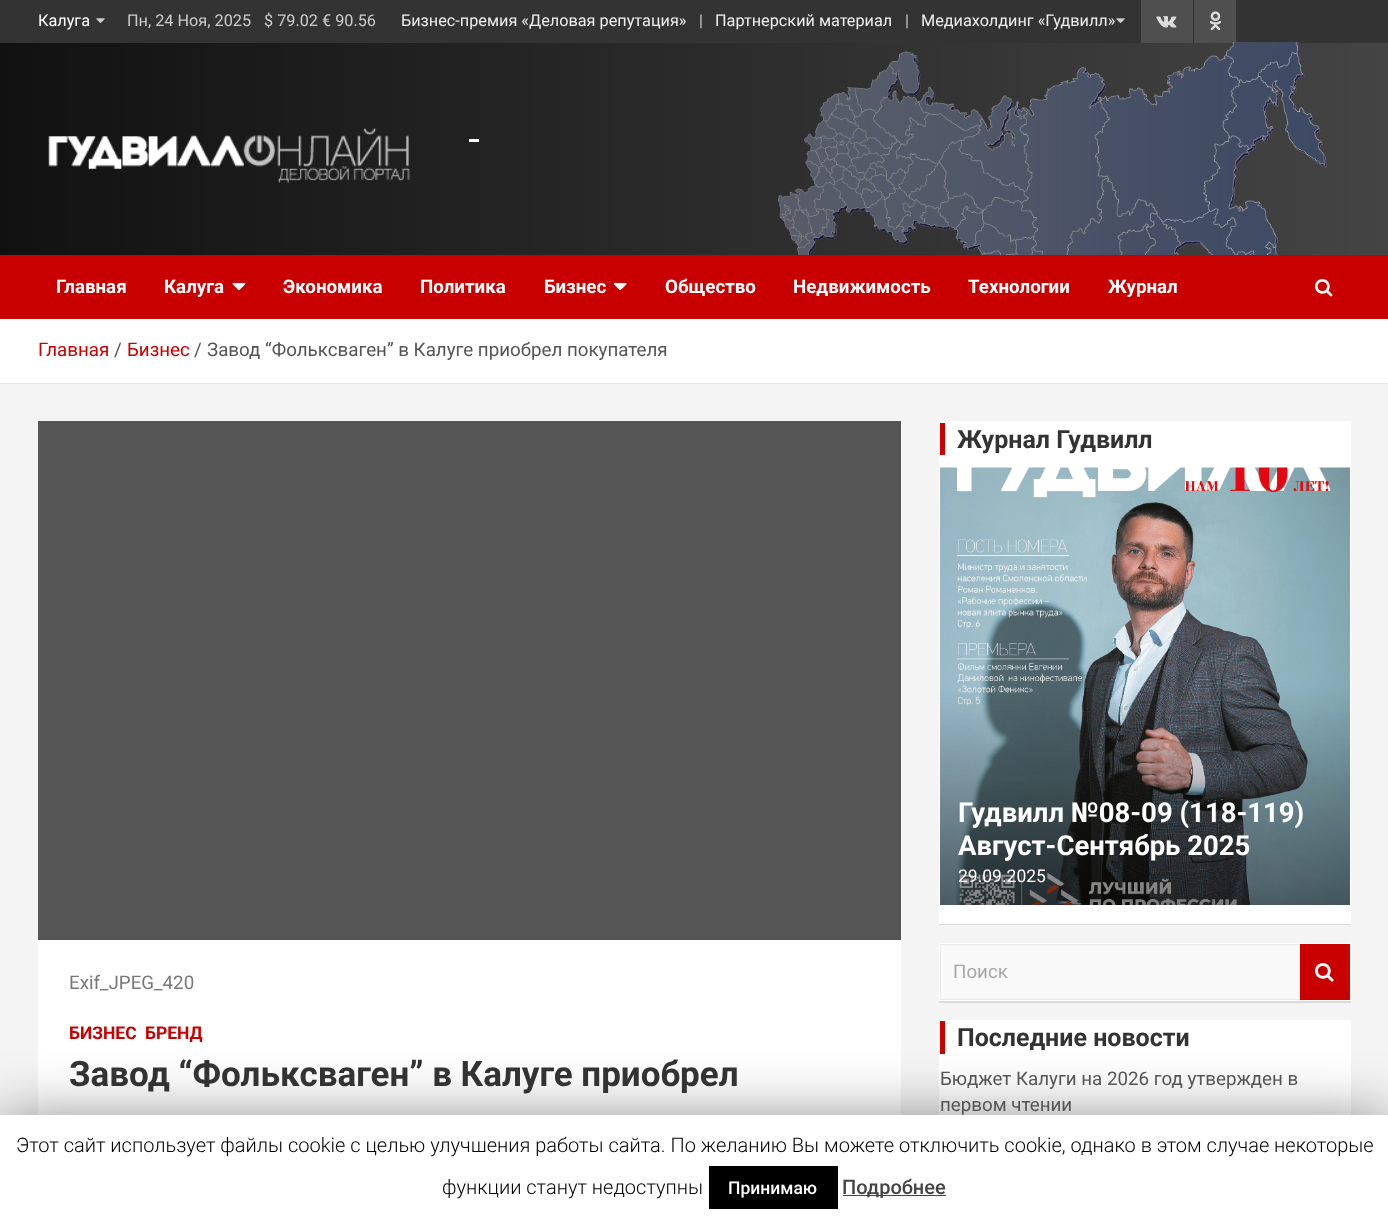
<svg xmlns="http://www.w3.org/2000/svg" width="1388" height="1224">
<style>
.a{font:16.25px Roboto;fill:#fff}
.b{font:16.25px Roboto;fill:#ccc}
.c{font:16.25px Roboto;fill:#eee}
.d{font:bold 18.75px Roboto;fill:#fff}
.e{font:18.75px Roboto;fill:#c80000}
.f{font:18.75px Roboto;fill:#555}
.g{font:18.75px Roboto;fill:#787878}
.h{font:bold 17.5px Roboto;fill:#c80000}
.i{font:bold 35px Roboto;fill:#333}
.j{font:bold 25px Roboto;fill:#333}
.k{font:bold 27.5px Roboto;fill:#fff}
.l{font:17.5px Roboto;fill:#fff}
.m{font:18.75px Roboto;fill:#a7a7a7}
.n{font:300 20px Roboto;fill:#000}
.o{font:500 17.5px Roboto;fill:#fff}
.p{font:500 20px Roboto;fill:#444}
</style>
<defs>
<linearGradient id="g1" gradientUnits="userSpaceOnUse" x1="0" y1="149" x2="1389" y2="149"><stop offset="0" stop-color="#000" stop-opacity="0.8"/><stop offset="1" stop-color="#000" stop-opacity="0.2"/></linearGradient>
</defs>
<rect width="100%" height="100%" fill="#f4f4f4"/>
<path fill="#333" d="M0 0h1388v43H0z"/>
<image href="1.png" x="96" y="18" width="9" height="5"/>
<image href="1.png" x="1116" y="18" width="9" height="5"/>
<path fill="#4f4f4f" d="M1141 0h52v43H1141z"/>
<image href="2.png" x="1156" y="16" width="21" height="12"/>
<path fill="#4f4f4f" d="M1194 0h42v43H1194z"/>
<image href="3.png" x="1209" y="11" width="12" height="20"/>
<path fill="#555" d="M0 43h1388v212H0z"/>
<image href="4.png" x="778" y="42" width="549" height="213"/>
<path fill="url(#g1)" d="M0 43h1388v212H0z"/>
<image href="5.png" x="48" y="128" width="363" height="55"/>
<path fill="#fff" d="M469 139h3v3H469z"/>
<path fill="#0000001a" filter="blur(0.5px)" d="M471 140h3v3H471z"/>
<path fill="#fff" d="M471 139h6v3H471z"/>
<path fill="#0000001a" filter="blur(0.5px)" d="M476 140h3v3H476z"/>
<path fill="#fff" d="M476 139h3v3H476z"/>
<path fill="#c80000" d="M0 255h1388v64H0z"/>
<image href="6.png" x="232" y="283" width="14" height="8"/>
<image href="7.png" x="613" y="283" width="14" height="8"/>
<image href="8.png" x="1315" y="279" width="18" height="18"/>
<path fill="#fff" d="M0 319h1388v64H0z"/>
<path fill="#e6e6e6" d="M0 383h1388v1H0z"/>
<path fill="#fff" d="M38 940h863v175H38z"/>
<path fill="#555" d="M38 421h863v519H38z"/>
<path fill="#0000001a" filter="blur(0.5px)" d="M939 423h412v502H939z"/>
<path fill="#fff" d="M939 421h412v503H939z"/>
<path fill="#c80000" d="M940 423h5v32H940z"/>
<image href="9.png" x="940" y="467" width="410" height="438"/>
<path fill="#0000001a" filter="blur(0.5px)" d="M939 944h412v59H939z"/>
<path fill="#fff" d="M939 943h412v58H939z"/>
<path fill="#f9f9f9" d="M941 945h359v54H941z"/>
<path fill="#e8e8e8" d="M940 944h360v1h-359z"/>
<path fill="#e8e8e8" d="M1300 1000h-360l1-1h359z"/>
<path fill="#00000017" d="M940 1000v-56l1 1v54z"/>
<path fill="#c80000" d="M1300 944h50v56H1300z"/>
<image href="10.png" x="1315" y="963" width="19" height="19"/>
<path fill="#fff" d="M939 1020h412v95H939z"/>
<path fill="#c80000" d="M940 1021h5v33H940z"/>
<path fill="#00000080" filter="blur(31px)" d="M0 1121h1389v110H0z"/>
<path fill="#fff" d="M0 1115h1388v109H0z"/>
<path fill="#000" d="M709 1166h129v43H709z"/>
<path fill="#444" d="M843 1195h103v1H843z"/>
<text class="a" x="38" y="26">Калуга</text>
<text class="b" x="127" y="26">Пн, 24 Ноя, 2025</text>
<text class="b" x="264" y="26">$ 79.02 € 90.56</text>
<text class="c" x="401" y="26">Бизнес-премия «Деловая репутация»</text>
<text class="b" x="699" y="26">|</text>
<text class="c" x="715" y="26">Партнерский материал</text>
<text class="b" x="905" y="26">|</text>
<text class="c" x="921" y="26">Медиахолдинг «Гудвилл»</text>
<text class="d" x="56" y="293">Главная</text>
<text class="d" x="164" y="293">Калуга</text>
<text class="d" x="283" y="293">Экономика</text>
<text class="d" x="420" y="293">Политика</text>
<text class="d" x="544" y="293">Бизнес</text>
<text class="d" x="665" y="293">Общество</text>
<text class="d" x="793" y="293">Недвижимость</text>
<text class="d" x="968" y="293">Технологии</text>
<text class="d" x="1108" y="293">Журнал</text>
<text class="e" x="38" y="356">Главная</text>
<text class="f" x="114" y="356">/</text>
<text class="e" x="127" y="356">Бизнес</text>
<text class="f" x="194" y="356">/</text>
<text class="f" x="207" y="356">Завод “Фольксваген” в Калуге приобрел покупателя</text>
<text class="g" x="69" y="989">Exif_JPEG_420</text>
<text class="h" x="69" y="1039">БИЗНЕС</text>
<text class="h" x="145" y="1039">БРЕНД</text>
<text class="i" x="69" y="1086">Завод “Фольксваген” в Калуге приобрел</text>
<text class="j" x="957" y="448">Журнал Гудвилл</text>
<text class="k" x="958" y="822">Гудвилл №08-09 (118-119)</text>
<text class="k" x="958" y="855">Август-Сентябрь 2025</text>
<text class="l" x="958" y="882">29.09.2025</text>
<text class="m" x="953" y="978">Поиск</text>
<text class="j" x="957" y="1046">Последние новости</text>
<text class="f" x="940" y="1085">Бюджет Калуги на 2026 год утвержден в</text>
<text class="f" x="940" y="1111">первом чтении</text>
<text class="n" x="16" y="1152">Этот сайт использует файлы cookie с целью улучшения работы сайта. По желанию Вы можете отключить cookie, однако в этом случае некоторые</text>
<text class="n" x="442" y="1194">функции станут недоступны</text>
<text class="o" x="728" y="1194">Принимаю</text>
<text class="p" x="842" y="1194">Подробнее</text>
</svg>
